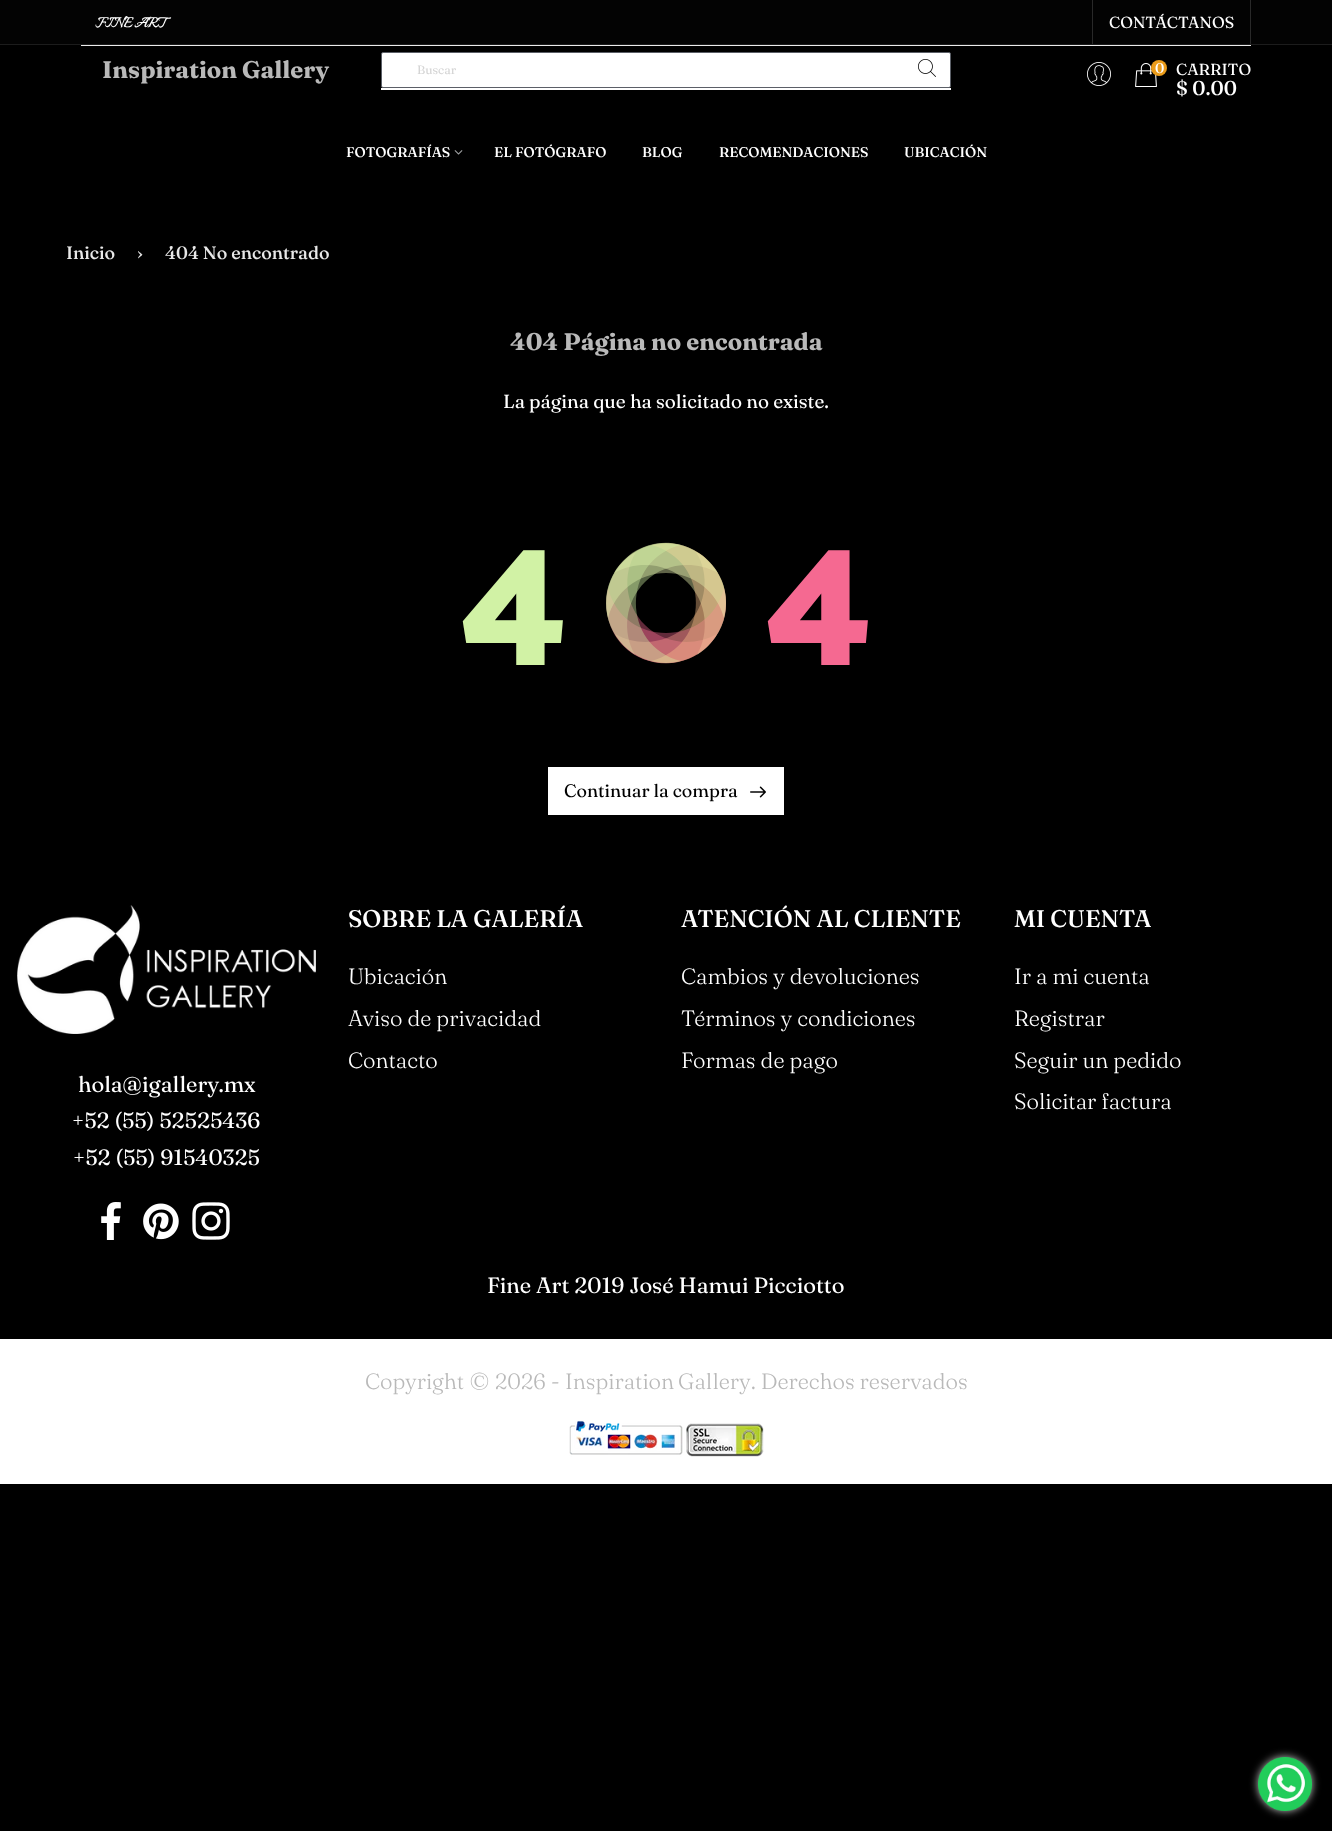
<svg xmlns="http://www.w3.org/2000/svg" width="1332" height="1831">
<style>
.a{font:bold 17px Italianno;fill:#fff}
.b{font:16px Fraunces;fill:#fff}
.c{font:bold 24px Fraunces;fill:#b9b9b9}
.d{font:12px Fraunces;fill:#d5d5d5}
.e{font:500 14px 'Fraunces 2';fill:#fff}
.f{font:500 20px Fraunces;fill:#fff}
.g{font:500 18px 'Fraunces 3';fill:#e8e8e8}
.h{font:19px 'Fraunces 2';fill:#fff}
.i{font:800 180px Catamaran;fill:#d1f2a5}
.j{font:800 180px Catamaran;fill:#f56991}
.k{font:18px 'Fraunces 3';fill:#000}
.l{font:500 24px 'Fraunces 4';fill:#fff}
.m{font:300 22px Fraunces;fill:#fff}
.n{font:22px 'Fraunces 4';fill:#fff}
.o{font:300 22px Fraunces;fill:#b9b9b9}
</style>
<rect width="100%" height="100%" fill="#000"/>
<path fill="#030303" d="M0 0h1332v44H0z"/>
<path fill="#1c1c1c" d="M0 44h1332v1H0z"/>
<path fill="#292929" d="M1250 0h1v44H1250z"/>
<path fill="#292929" d="M1092 0h1v44H1092z"/>
<path fill="#ebebeb" d="M81 45h1170v1H81z"/>
<rect fill="#fff" stroke="#5b5f67" x="381.5" y="52.5" width="569" height="35" rx="1.5"/>
<image href="1.png" x="918" y="59" width="18" height="18"/>
<path fill="#fff" d="M381 88h570v2H381z"/>
<image href="2.png" x="1087" y="62" width="24" height="24"/>
<image href="3.png" x="1135" y="63" width="22" height="24"/>
<circle fill="#eb9c1a" cx="1159" cy="68" r="8"/>
<image href="4.png" x="454" y="150" width="9" height="5"/>
<path fill="#622a3a" d="M717 634c-23 13-53 10-72-9c-20-20-23-51-9-73c-42 24-39 88 7 107c11 4 23 5 34 3c17-3 32-13 40-28z"/>
<path fill="#ffc48c66" d="M708 561c-3-4-7-7-12-9c14 22 11 53-9 73c-19 19-49 22-72 9c2 4 5 8 9 12c23 23 61 23 84 0c24-24 24-62 0-85z"/>
<path fill="#effab466" d="M687 582c20 20 23 50 10 73c14-9 25-24 28-40c2-12 1-24-3-34c-19-46-83-50-108-8c24-13 54-10 73 9z"/>
<path fill="#d1f2a566" d="M708 561c-23-24-61-24-84 0c-24 23-24 61 0 85c3 3 7 6 11 9c-13-23-10-53 10-73c19-19 49-22 73-9c-3-4-6-8-10-12z"/>
<path fill="#f5699166" d="M608 588c-3 13-2 26 3 38c4 11 12 20 21 27c47 31 106-13 92-65c-15 60-101 60-116 0z"/>
<path fill="#ffc48c66" d="M666 543c-5 0-10 1-15 2c60 15 60 101 0 116c5 1 10 2 15 2c33 0 60-27 60-60c0-33-27-60-60-60z"/>
<path fill="#effab466" d="M666 573c28 0 51 19 58 45c14-52-45-96-92-65c-9 7-17 16-21 27c-5 12-6 25-3 38c7-26 30-45 58-45z"/>
<path fill="#d1f2a566" d="M666 543c-33 0-60 27-60 60c0 33 27 60 60 60c5 0 10-1 15-2c-60-15-60-101 0-116c-5-1-10-2-15-2z"/>
<path fill="#fff" d="M548 767h236v48H548z"/>
<image href="5.png" x="750" y="786" width="16" height="12"/>
<image href="6.png" x="17" y="905" width="299" height="129"/>
<image href="7.png" x="101" y="1202" width="20" height="38"/>
<image href="8.png" x="143" y="1203" width="36" height="37"/>
<image href="9.png" x="192" y="1202" width="38" height="38"/>
<path fill="#fff" d="M0 1339h1332v145H0z"/>
<image href="10.png" x="569" y="1420" width="195" height="37"/>
<rect fill="#c2c2c2" filter="blur(4px)" x="1258" y="1757" width="54" height="54" rx="27"/>
<image href="11.png" x="1258" y="1757" width="54" height="54"/>
<text class="a" x="95" y="27">FINE ART</text>
<text class="b" x="1109" y="28">CONTÁCTANOS</text>
<text class="c" x="102" y="78">Inspiration Gallery</text>
<text class="d" x="417" y="74">Buscar</text>
<text class="e" x="1155" y="73">0</text>
<text class="b" x="1176" y="75">CARRITO</text>
<text class="f" x="1176" y="95">$ 0.00</text>
<text class="e" x="346" y="157">FOTOGRAFÍAS</text>
<text class="e" x="494" y="157">EL FOTÓGRAFO</text>
<text class="e" x="642" y="157">BLOG</text>
<text class="e" x="719" y="157">RECOMENDACIONES</text>
<text class="e" x="904" y="157">UBICACIÓN</text>
<text class="g" x="66" y="259">Inicio</text>
<text class="g" x="137" y="259">›</text>
<text class="g" x="165" y="259">404 No encontrado</text>
<text class="c" x="510" y="350">404 Página no encontrada</text>
<text class="h" x="503" y="408">La página que ha solicitado no existe.</text>
<text class="i" x="461" y="653">4</text>
<text class="j" x="766" y="653">4</text>
<text class="k" x="564" y="797">Continuar la compra</text>
<text class="l" x="348" y="927">SOBRE LA GALERÍA</text>
<text class="m" x="348" y="984">Ubicación</text>
<text class="m" x="348" y="1026">Aviso de privacidad</text>
<text class="m" x="348" y="1068">Contacto</text>
<text class="l" x="681" y="927">ATENCIÓN AL CLIENTE</text>
<text class="m" x="681" y="984">Cambios y devoluciones</text>
<text class="m" x="681" y="1026">Términos y condiciones</text>
<text class="m" x="681" y="1068">Formas de pago</text>
<text class="l" x="1014" y="927">MI CUENTA</text>
<text class="m" x="1014" y="984">Ir a mi cuenta</text>
<text class="m" x="1014" y="1026">Registrar</text>
<text class="m" x="1014" y="1068">Seguir un pedido</text>
<text class="m" x="1014" y="1109">Solicitar factura</text>
<text class="n" x="78" y="1092">hola@igallery.mx</text>
<text class="n" x="72" y="1128">+52 (55) 52525436</text>
<text class="n" x="73" y="1165">+52 (55) 91540325</text>
<text class="n" x="487" y="1293">Fine Art 2019 José Hamui Picciotto</text>
<text class="o" x="365" y="1389">Copyright © 2026 -</text>
<text class="o" x="565" y="1389" word-spacing="-1">Inspiration Gallery</text>
<text class="o" x="751" y="1389">. Derechos reservados</text>
</svg>
